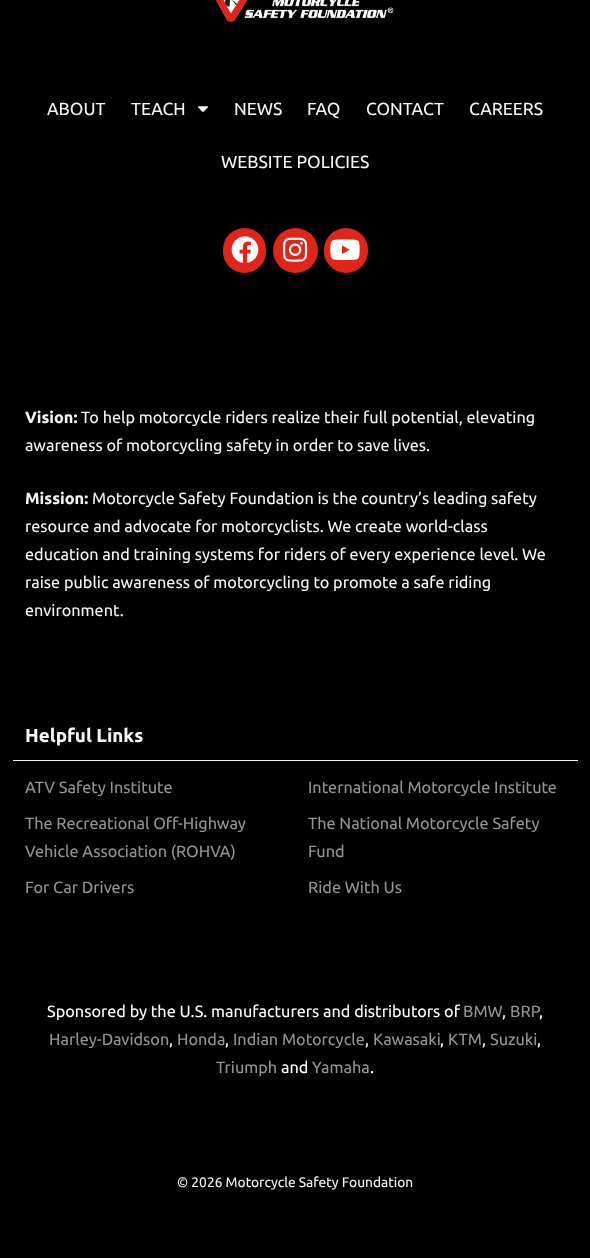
<svg xmlns="http://www.w3.org/2000/svg" width="590" height="1258">
<style>
.a{font:17.5px Ubuntu;fill:#f5f5f5}
.b{font:bold 16.25px Ubuntu;fill:#f5f5f5}
.c{font:16.25px Ubuntu;fill:#f5f5f5}
.d{font:bold 18.75px Ubuntu;fill:#f5f5f5}
.e{font:16.25px Ubuntu;fill:#939598}
.f{font:16.25px Ubuntu;fill:#fff}
.g{font:13.75px Ubuntu;fill:#f5f5f5}
</style>
<rect width="100%" height="100%" fill="#000"/>
<image href="1.png" x="215" y="0" width="179" height="22"/>
<image href="2.png" x="197" y="106" width="11" height="6"/>
<rect fill="#e1251b" x="223" y="228" width="43" height="45" rx="21.5"/>
<image href="3.png" x="231" y="236" width="28" height="27"/>
<circle fill="#e1251b" cx="295.5" cy="250.5" r="22.5"/>
<image href="4.png" x="283" y="237" width="25" height="25"/>
<rect fill="#e1251b" x="324" y="228" width="44" height="45" rx="22"/>
<image href="5.png" x="330" y="239" width="30" height="21"/>
<path fill="#f5f5f5" d="M13 760h565v1H13z"/>
<text class="a" x="47" y="115">ABOUT</text>
<text class="a" x="131" y="115">TEACH</text>
<text class="a" x="234" y="115">NEWS</text>
<text class="a" x="307" y="115">FAQ</text>
<text class="a" x="366" y="115">CONTACT</text>
<text class="a" x="469" y="115">CAREERS</text>
<text class="a" x="221" y="168">WEBSITE POLICIES</text>
<text class="b" x="25" y="423">Vision:</text>
<text class="c" x="81" y="423">To help motorcycle riders realize their full potential, elevating</text>
<text class="c" x="25" y="451">awareness of motorcycling safety in order to save lives.</text>
<text class="b" x="25" y="504">Mission:</text>
<text class="c" x="92" y="504">Motorcycle Safety Foundation is the country’s leading safety</text>
<text class="c" x="25" y="532">resource and advocate for motorcyclists. We create world-class</text>
<text class="c" x="25" y="560">education and training systems for riders of every experience level. We</text>
<text class="c" x="25" y="588">raise public awareness of motorcycling to promote a safe riding</text>
<text class="c" x="25" y="616">environment.</text>
<text class="d" x="25" y="742">Helpful Links</text>
<text class="e" x="25" y="793">ATV Safety Institute</text>
<text class="e" x="308" y="793">International Motorcycle Institute</text>
<text class="e" x="25" y="829">The Recreational Off-Highway</text>
<text class="e" x="25" y="857">Vehicle Association (ROHVA)</text>
<text class="e" x="308" y="829">The National Motorcycle Safety</text>
<text class="e" x="308" y="857">Fund</text>
<text class="e" x="25" y="893">For Car Drivers</text>
<text class="e" x="308" y="893">Ride With Us</text>
<text class="f" x="47" y="1017">Sponsored by the U.S. manufacturers and distributors of</text>
<text class="e" x="463" y="1017">BMW</text>
<text class="f" x="502" y="1017">,</text>
<text class="e" x="510" y="1017">BRP</text>
<text class="f" x="539" y="1017">,</text>
<text class="e" x="49" y="1045">Harley-Davidson</text>
<text class="e" x="177" y="1045">Honda</text>
<text class="e" x="233" y="1045">Indian Motorcycle</text>
<text class="e" x="373" y="1045">Kawasaki</text>
<text class="e" x="448" y="1045">KTM</text>
<text class="e" x="490" y="1045">Suzuki</text>
<text class="f" x="169" y="1045">,</text>
<text class="f" x="225" y="1045">,</text>
<text class="f" x="365" y="1045">,</text>
<text class="f" x="440" y="1045">,</text>
<text class="f" x="482" y="1045">,</text>
<text class="f" x="537" y="1045">,</text>
<text class="e" x="216" y="1073">Triumph</text>
<text class="f" x="281" y="1073">and</text>
<text class="e" x="312" y="1073">Yamaha</text>
<text class="f" x="370" y="1073">.</text>
<text class="g" x="177" y="1187">© 2026 Motorcycle Safety Foundation</text>
</svg>
